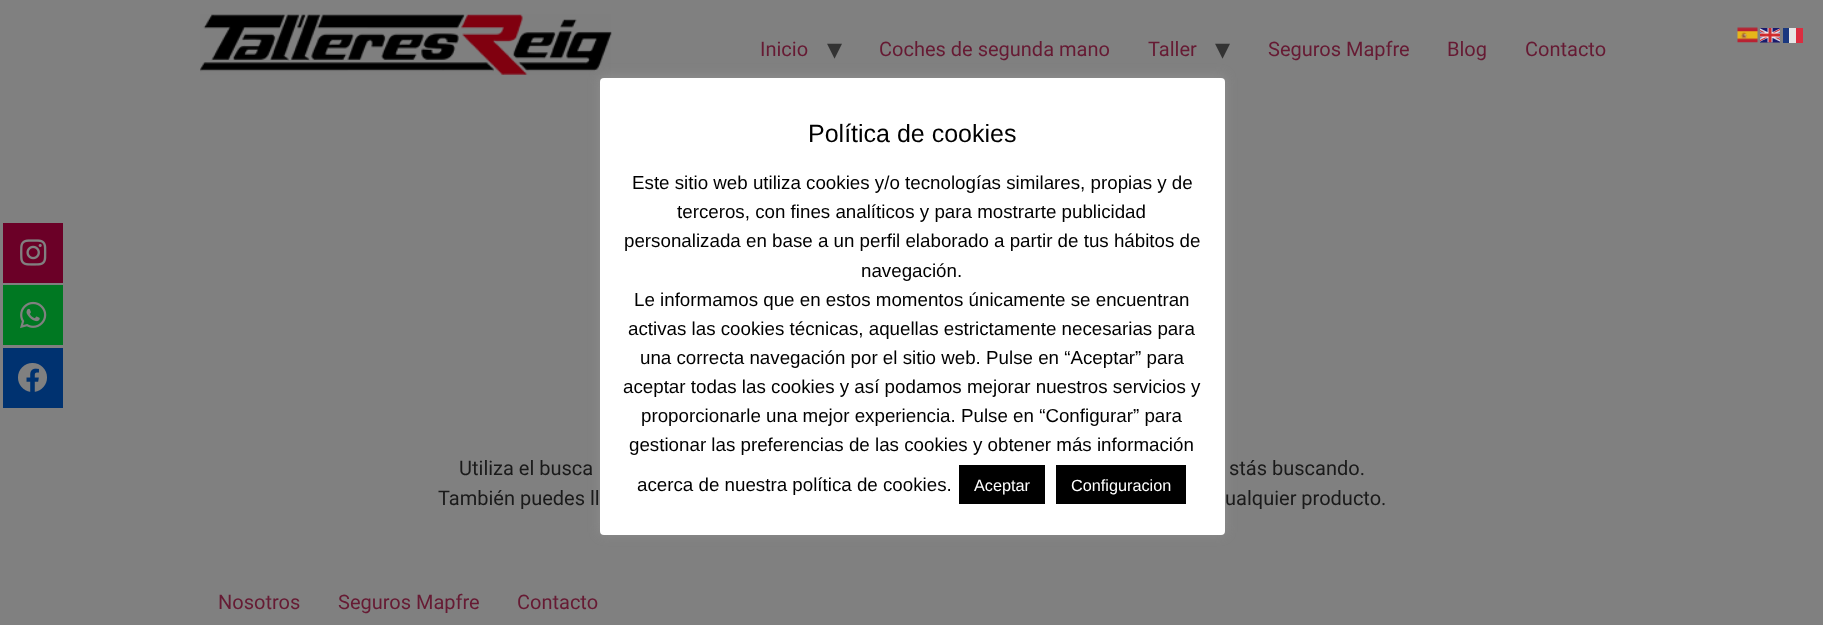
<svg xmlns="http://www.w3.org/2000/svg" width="1823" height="625">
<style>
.a{font:20px Roboto;fill:#661a33}
.b{font:30px DejaVu Sans;fill:#333}
.c{font:25px Liberation Sans;fill:#000}
.d{font:18.75px Liberation Sans;fill:#000}
.e{font:16.25px Liberation Sans;fill:#fff}
.f{font:20px Roboto;fill:#1a1a1a}
</style>
<rect width="100%" height="100%" fill="#808080"/>
<image href="1.png" x="1737" y="27" width="21" height="16"/>
<image href="2.png" x="1760" y="28" width="20" height="15"/>
<path fill="#1a387f" d="M1783 28h6v15H1783z"/>
<path fill="#e6e6e6" d="M1789 28h7v15H1789z"/>
<path fill="#dc2d40" d="M1796 28h7v15H1796z"/>
<image href="3.png" x="200" y="14" width="412" height="61"/>
<path fill="#6b0027" d="M3 223h60v60H3z"/>
<image href="4.png" x="20" y="239" width="27" height="27"/>
<path fill="#007822" d="M3 285h60v60H3z"/>
<image href="5.png" x="20" y="301" width="27" height="28"/>
<path fill="#003270" d="M3 348h60v60H3z"/>
<image href="6.png" x="18" y="363" width="29" height="29"/>
<rect fill="#acabab4d" filter="blur(6px)" x="600" y="76" width="625" height="458" rx="4"/>
<rect fill="#fff" x="600" y="78" width="625" height="457" rx="4"/>
<path fill="#000" d="M959 465h86v39H959z"/>
<path fill="#000" d="M1056 465h130v39H1056z"/>
<text class="a" x="760" y="56">Inicio</text>
<text class="b" x="827" y="59">▾</text>
<text class="a" x="879" y="56">Coches de segunda mano</text>
<text class="a" x="1148" y="56">Taller</text>
<text class="b" x="1215" y="59">▾</text>
<text class="a" x="1268" y="56">Seguros Mapfre</text>
<text class="a" x="1447" y="56">Blog</text>
<text class="a" x="1525" y="56">Contacto</text>
<text class="c" x="808" y="142">Política de cookies</text>
<text class="d" x="632" y="189">Este sitio web utiliza cookies y/o tecnologías similares, propias y de</text>
<text class="d" x="677" y="218">terceros, con fines analíticos y para mostrarte publicidad</text>
<text class="d" x="624" y="247">personalizada en base a un perfil elaborado a partir de tus hábitos de</text>
<text class="d" x="861" y="277">navegación.</text>
<text class="d" x="634" y="306">Le informamos que en estos momentos únicamente se encuentran</text>
<text class="d" x="628" y="335">activas las cookies técnicas, aquellas estrictamente necesarias para</text>
<text class="d" x="640" y="364">una correcta navegación por el sitio web. Pulse en “Aceptar” para</text>
<text class="d" x="623" y="393">aceptar todas las cookies y así podamos mejorar nuestros servicios y</text>
<text class="d" x="641" y="422">proporcionarle una mejor experiencia. Pulse en “Configurar” para</text>
<text class="d" x="629" y="451">gestionar las preferencias de las cookies y obtener más información</text>
<text class="d" x="637" y="491">acerca de nuestra política de cookies.</text>
<text class="e" x="974" y="491">Aceptar</text>
<text class="e" x="1071" y="491">Configuracion</text>
<text class="f" x="459" y="475">Utiliza el busca</text>
<text class="f" x="1229" y="475">stás buscando.</text>
<text class="f" x="438" y="505">También puedes ll</text>
<text class="f" x="1225" y="505">ualquier producto.</text>
<text class="a" x="218" y="609">Nosotros</text>
<text class="a" x="338" y="609">Seguros Mapfre</text>
<text class="a" x="517" y="609">Contacto</text>
</svg>
